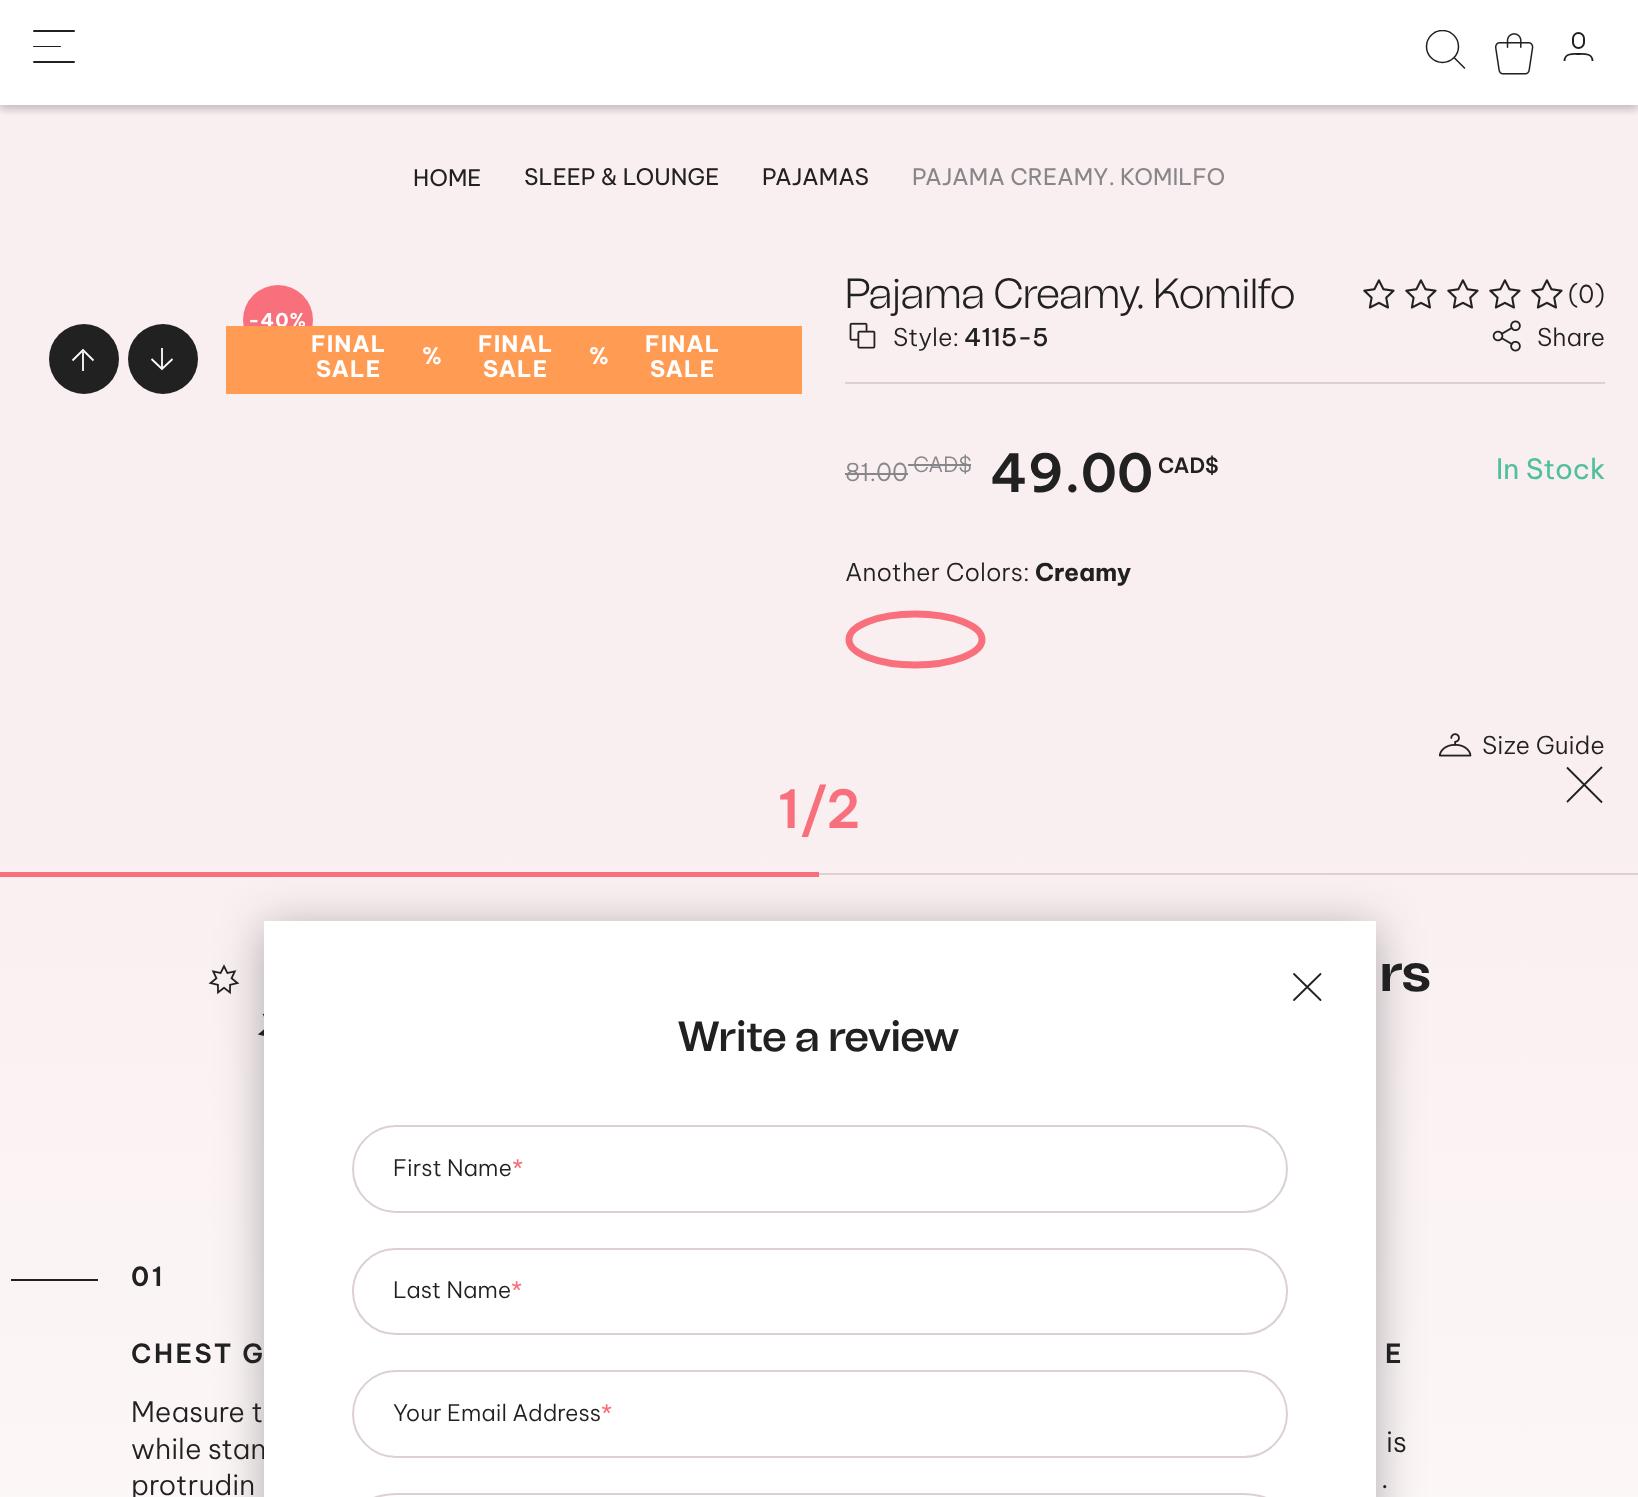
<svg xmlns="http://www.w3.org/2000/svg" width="1638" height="1497">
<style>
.a{font:22.75px Be Vietnam Pro;fill:#212121}
.b{font:22.75px Be Vietnam Pro;fill:#87878a}
.c{font:bold 19px Be Vietnam Pro;letter-spacing:1px;fill:#fff}
.d{font:bold 22.75px Be Vietnam Pro;letter-spacing:1px;fill:#fff}
.e{font:300 42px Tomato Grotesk;fill:#212121}
.f{font:300 24.5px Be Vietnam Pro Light;fill:#212121}
.g{font:500 24.5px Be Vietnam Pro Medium;fill:#212121}
.h{font:300 24.5px Be Vietnam Pro Light;fill:#87878a}
.i{font:300 21px Be Vietnam Pro Light;fill:#87878a}
.j{font:600 52.5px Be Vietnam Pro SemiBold;fill:#212121}
.k{font:600 21px Be Vietnam Pro SemiBold;fill:#212121}
.l{font:28px Be Vietnam Pro;fill:#4fc09e}
.m{font:bold 24.5px Be Vietnam Pro;fill:#212121}
.n{font:600 52.5px Be Vietnam Pro SemiBold;fill:#f8707b}
.o{font:bold 52.5px Tomato Grotesk;fill:#212121}
.p{font:600 26.25px Be Vietnam Pro SemiBold;letter-spacing:2.5px;fill:#212121}
.q{font:300 28px Be Vietnam Pro Light;fill:#212121}
.r{font:600 42px Tomato Grotesk;fill:#212121}
.s{font:300 22.75px Be Vietnam Pro Light;fill:#212121}
.t{font:22.75px Be Vietnam Pro;fill:#f8707b}
</style>
<defs>
<clipPath id="clip1"><path d="M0 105h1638v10H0z"/></clipPath>
<clipPath id="clip2"><path d="M1425 30h42v40H1425z"/></clipPath>
<linearGradient id="g1" gradientUnits="userSpaceOnUse" x1="819" y1="735" x2="819" y2="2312"><stop offset="0" stop-color="#f9eef0"/><stop offset="1" stop-color="#fff"/></linearGradient>
</defs>
<rect width="100%" height="100%" fill="#fff"/>
<path fill="#f9eef0" d="M0 105h1638v630H0z"/>
<g clip-path="url(#clip1)">
<path fill="#21212140" filter="blur(4.5px)" d="M0 4h1638v105H0z"/>
</g>
<rect fill="#212121" x="33" y="30" width="42" height="2" rx="1"/>
<rect fill="#212121" x="33" y="46" width="28" height="1" rx="0.5"/>
<rect fill="#212121" x="33" y="61" width="42" height="2" rx="1"/>
<g clip-path="url(#clip2)">
<circle fill="none" stroke="#212121" stroke-width="1.5" cx="1442.5" cy="46.5" r="16"/>
</g>
<path fill="none" stroke="#212121" stroke-width="1.5" stroke-linecap="round" d="M1454.5 58l10 10"/>
<image href="1.png" x="1495" y="33" width="39" height="42"/>
<rect fill="none" stroke="#212121" stroke-width="2" x="1573" y="33" width="11" height="15" rx="5.5"/>
<path fill="none" stroke="#212121" stroke-width="1.8" d="M1564.5 61c0-8 8.5-7 14-7c5.5 0 14-1 14 7"/>
<circle fill="#212121" cx="84" cy="359" r="35"/>
<path fill="#e9e9e9" d="M82 352h2v19H82z"/>
<path fill="none" stroke="#fff" stroke-width="1.8" d="M72.5 360.5l10.5-10.5l10.5 10.5"/>
<circle fill="#212121" cx="163" cy="359" r="35"/>
<path fill="#e9e9e9" d="M161 348h2v20H161z"/>
<path fill="none" stroke="#fff" stroke-width="1.8" d="M172.5 359l-10.5 10l-10.5-10"/>
<circle fill="#f8707b" cx="278" cy="320" r="35"/>
<image href="2.png" x="1363" y="279" width="32" height="30"/>
<image href="2.png" x="1405" y="279" width="32" height="30"/>
<image href="2.png" x="1447" y="279" width="32" height="30"/>
<image href="2.png" x="1489" y="279" width="32" height="30"/>
<image href="2.png" x="1531" y="279" width="32" height="30"/>
<image href="3.png" x="849" y="322" width="27" height="27"/>
<image href="4.png" x="1492" y="320" width="29" height="32"/>
<path fill="#dcd0d3" d="M845 382h760v2H845z"/>
<path fill="#87878a" d="M845 473h63v2H845z"/>
<path fill="#87878a" d="M908 464h63v2H908z"/>
<path fill="none" stroke="#f8707b" stroke-width="7" d="M915 614c37 0 67 11.5 67 25.5c0 14-30 25.5-67 25.5c-36.5 0-66-11.5-66-25.5c0-14 29.5-25.5 66-25.5z"/>
<path fill="url(#g1)" d="M0 735h1638v762H0z"/>
<image href="5.png" x="1438" y="733" width="34" height="24"/>
<path fill="#f8707b" d="M0 872h819v5H0z"/>
<path fill="#dcd0d3" d="M819 873h819v2H819z"/>
<image href="6.png" x="208" y="964" width="56" height="72"/>
<path fill="#212121" d="M11 1279h87v2H11z"/>
<path fill="none" stroke="#212121" stroke-width="1.8" d="M1567 767.5l35 35m0-35.5l-35 35"/>
<path fill="#21212159" filter="blur(23px)" d="M264 928h1112v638H264z"/>
<text class="a" x="413" y="186">HOME</text>
<text class="a" x="524" y="185">SLEEP &amp; LOUNGE</text>
<text class="a" x="762" y="185">PAJAMAS</text>
<text class="b" x="912" y="185">PAJAMA CREAMY. KOMILFO</text>
<text class="c" x="248" y="327">-40%</text>
<path fill="#ff9b53" d="M226 326h576v68H226z"/>
<text class="d" x="311" y="352">FINAL</text>
<text class="d" x="316" y="377">SALE</text>
<text class="d" x="422" y="364">%</text>
<text class="d" x="478" y="352">FINAL</text>
<text class="d" x="483" y="377">SALE</text>
<text class="d" x="589" y="364">%</text>
<text class="d" x="645" y="352">FINAL</text>
<text class="d" x="650" y="377">SALE</text>
<text class="e" x="845" y="308">Pajama Creamy. Komilfo</text>
<text class="f" x="1568" y="303">(0)</text>
<text class="f" x="893" y="346">Style:</text>
<text class="g" x="964" y="346">4115-5</text>
<text class="f" x="1537" y="346">Share</text>
<text class="h" x="845" y="481">81.00</text>
<text class="i" x="913" y="472">CAD$</text>
<text class="j" x="990" y="492">49.00</text>
<text class="k" x="1158" y="473">CAD$</text>
<text class="l" x="1496" y="479">In Stock</text>
<text class="f" x="845" y="581">Another Colors:</text>
<text class="m" x="1035" y="581">Creamy</text>
<text class="f" x="1482" y="754">Size Guide</text>
<text class="n" x="778" y="828">1/2</text>
<text class="o" x="1380" y="991">rs</text>
<text class="p" x="131" y="1286">01</text>
<text class="p" x="131" y="1363">CHEST G</text>
<text class="q" x="131" y="1422">Measure t</text>
<text class="q" x="131" y="1459">while stan</text>
<text class="q" x="131" y="1495">protrudin</text>
<text class="p" x="1385" y="1363">E</text>
<text class="q" x="1386" y="1452">is</text>
<text class="q" x="1381" y="1488">.</text>
<path fill="#fff" d="M264 921h1112v576H264z"/>
<path fill="none" stroke="#212121" stroke-width="1.8" stroke-linecap="round" d="M1294 974l26.5 26m-26.5 0l26.5-26"/>
<text class="r" x="678" y="1051">Write a review</text>
<rect fill="none" stroke="#dcd0d3" stroke-width="2" x="353" y="1126" width="934" height="86" rx="43"/>
<text class="s" x="393" y="1176">First Name</text>
<text class="t" x="512" y="1176">*</text>
<rect fill="none" stroke="#dcd0d3" stroke-width="2" x="353" y="1249" width="934" height="85" rx="42.5"/>
<text class="s" x="393" y="1298">Last Name</text>
<text class="t" x="511" y="1298">*</text>
<rect fill="none" stroke="#dcd0d3" stroke-width="2" x="353" y="1371" width="934" height="86" rx="43"/>
<text class="s" x="393" y="1421">Your Email Address</text>
<text class="t" x="601" y="1421">*</text>
<rect fill="none" stroke="#dcd0d3" stroke-width="2" x="353" y="1494" width="934" height="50" rx="45"/>
</svg>
